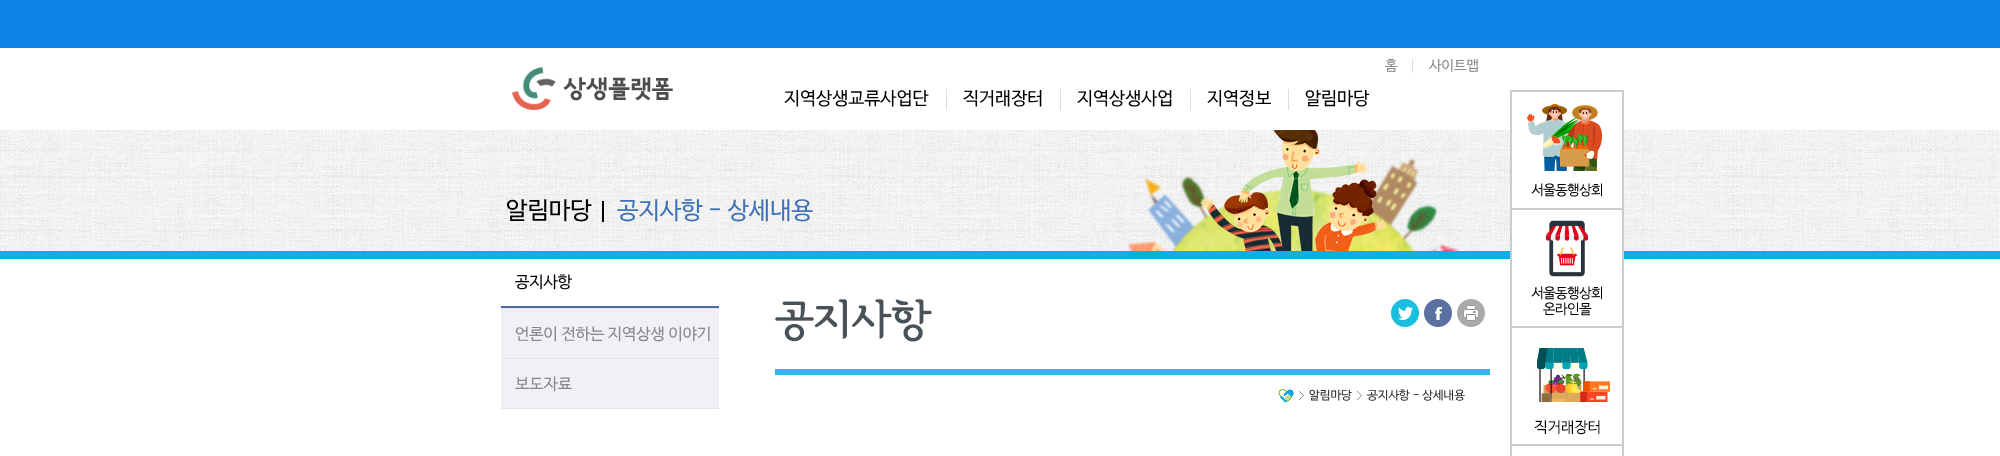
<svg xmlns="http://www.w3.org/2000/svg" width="2000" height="456">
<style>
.a{font:14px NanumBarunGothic;fill:#888}
.b{font:18px NanumBarunGothic;fill:#000}
.c{font:24px NanumBarunGothic;fill:#000}
.d{font:24px NanumBarunGothic;fill:#4074b7}
.e{font:16px NanumBarunGothic;fill:#000}
.f{font:16px NanumBarunGothic;fill:#888}
.g{font:12px NanumBarunGothic;fill:#2c2c2c}
</style>
<rect width="100%" height="100%" fill="#fff"/>
<path fill="#0c82e9" d="M0 0h2000v48H0z"/>
<path fill="#ddd" d="M1412 59h1v14H1412z"/>
<image href="1.png" x="512" y="67" width="161" height="43"/>
<path fill="#dedddd" d="M946 89h1v21H946z"/>
<path fill="#dedddd" d="M1060 89h1v21H1060z"/>
<path fill="#dedddd" d="M1190 89h1v21H1190z"/>
<path fill="#dedddd" d="M1288 89h1v21H1288z"/>
<image href="2.png" x="0" y="130" width="2000" height="121"/>
<path fill="#01b1ea" d="M0 251h2000v8H0z"/>
<image href="3.png" x="1127" y="130" width="333" height="121"/>
<path fill="#000" d="M602 201h2v21H602z"/>
<path fill="#e5e5e5" d="M501 308h218v1H501z"/>
<path fill="#516aaa" d="M501 306h218v2H501z"/>
<path fill="#e5e5e5" d="M501 358h218v1H501z"/>
<path fill="#f0f1f6" d="M501 309h218v49H501z"/>
<path fill="#e5e5e5" d="M501 408h218v1H501z"/>
<path fill="#f0f1f6" d="M501 359h218v49H501z"/>
<image href="4.png" x="775" y="299" width="157" height="43"/>
<image href="5.png" x="1391" y="299" width="28" height="28"/>
<image href="6.png" x="1424" y="299" width="28" height="28"/>
<image href="7.png" x="1457" y="299" width="28" height="28"/>
<path fill="#35b3ea" d="M775 369h715v6H775z"/>
<image href="8.png" x="1278" y="389" width="16" height="14"/>
<image href="9.png" x="1299" y="391" width="5" height="9"/>
<image href="9.png" x="1357" y="391" width="5" height="9"/>
<image href="10.png" x="1510" y="90" width="114" height="120"/>
<image href="11.png" x="1510" y="210" width="114" height="118"/>
<image href="12.png" x="1510" y="328" width="114" height="118"/>
<image href="13.png" x="1510" y="446" width="114" height="10"/>
<text class="a" x="1385" y="70">홈</text>
<text class="a" x="1429" y="70">사이트맵</text>
<text class="b" x="784" y="104">지역상생교류사업단</text>
<text class="b" x="963" y="104">직거래장터</text>
<text class="b" x="1077" y="104">지역상생사업</text>
<text class="b" x="1207" y="104">지역정보</text>
<text class="b" x="1305" y="104">알림마당</text>
<text class="c" x="506" y="218">알림마당</text>
<text class="d" x="617" y="218">공지사항 - 상세내용</text>
<text class="e" x="515" y="287">공지사항</text>
<text class="f" x="515" y="339">언론이 전하는 지역상생 이야기</text>
<text class="f" x="515" y="389">보도자료</text>
<text class="g" x="1309" y="399">알림마당</text>
<text class="g" x="1367" y="399">공지사항 - 상세내용</text>
</svg>
